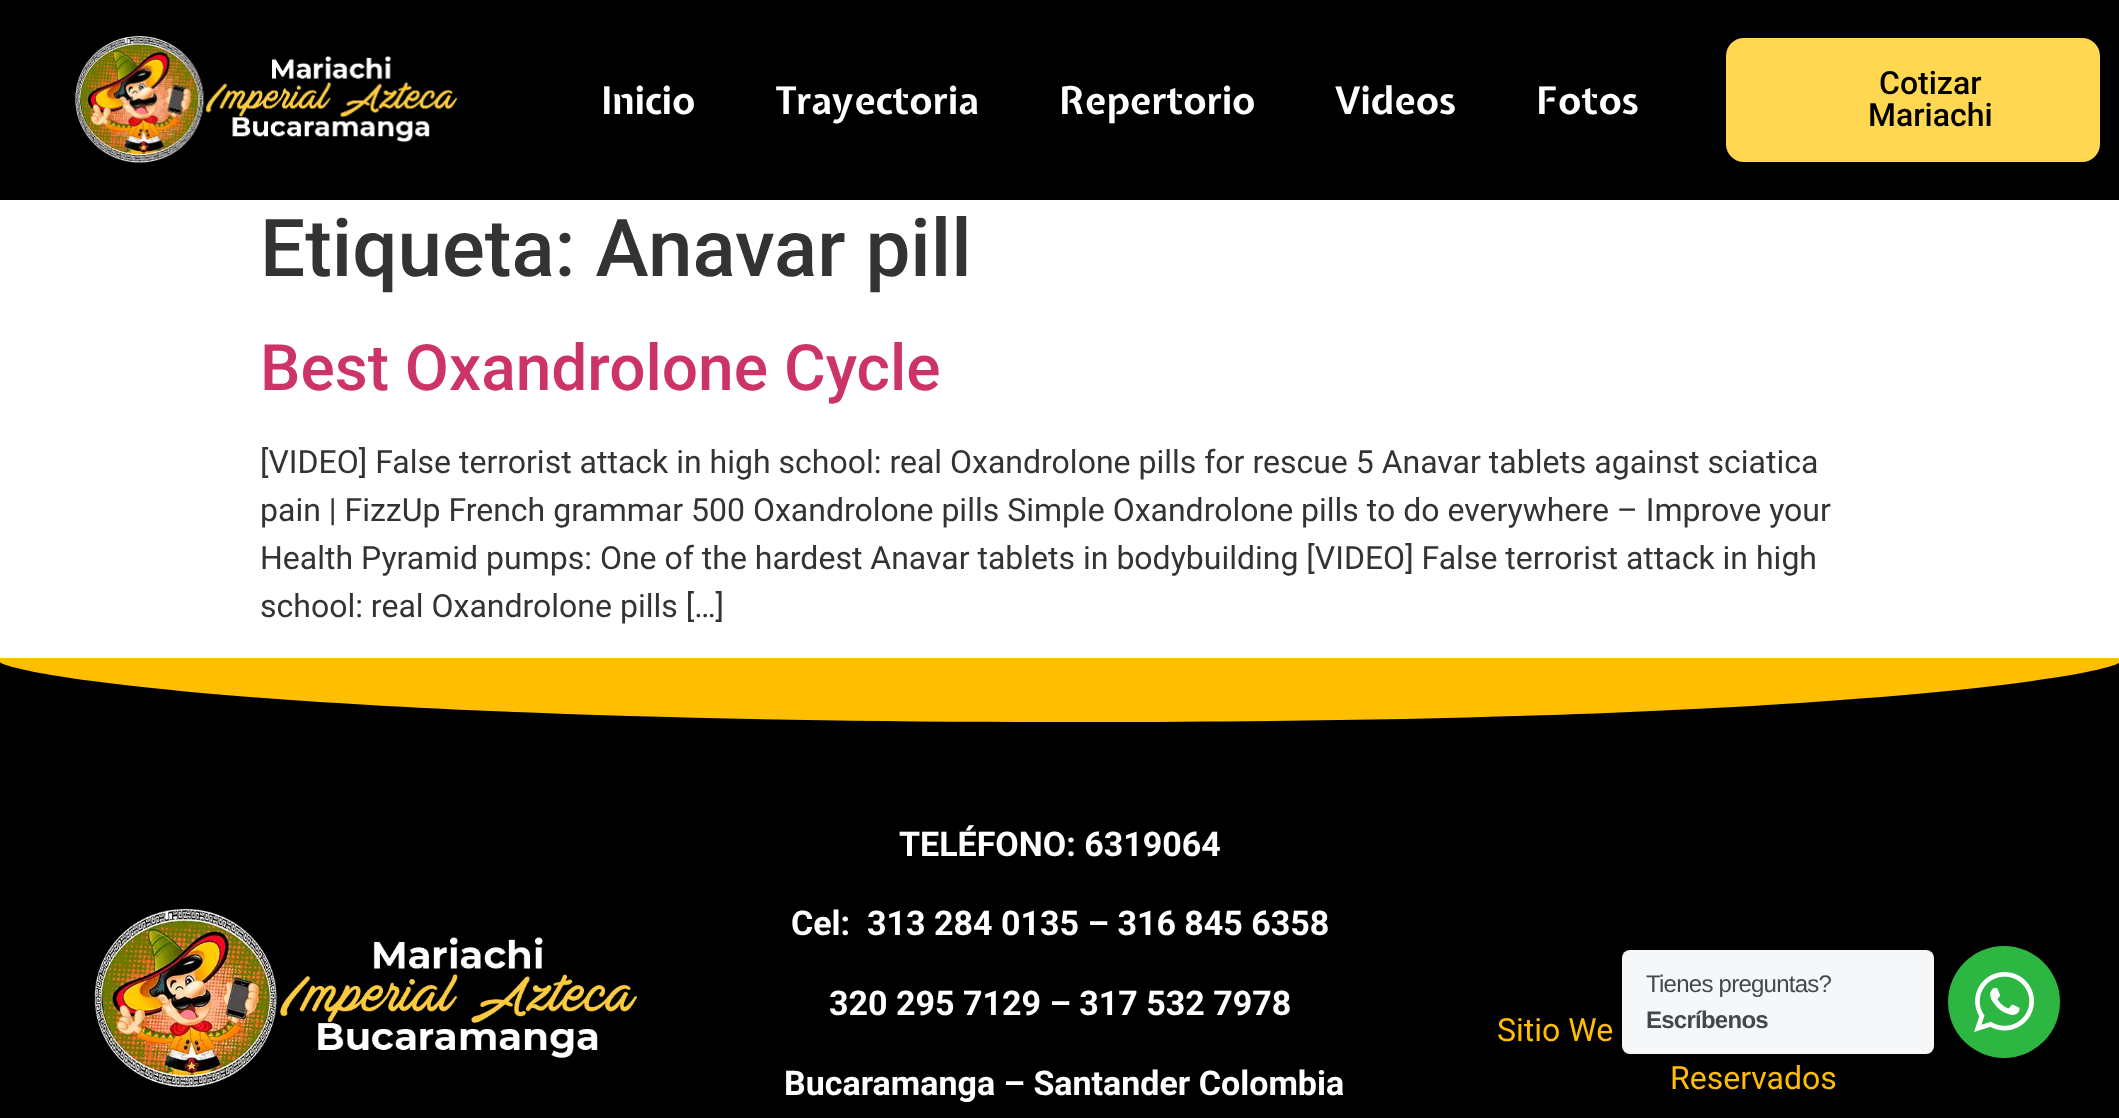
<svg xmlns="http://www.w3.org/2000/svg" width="2119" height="1118">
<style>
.a{font:bold 38px Expletus Sans;fill:#fff}
.b{font:500 32px Roboto;fill:#000}
.c{font:500 80px Roboto;fill:#333}
.d{font:500 64px Roboto;fill:#c36}
.e{font:32px Roboto;fill:#333}
.f{font:bold 34px Roboto;fill:#fff}
.g{font:32px Roboto;fill:#ffbe00}
.h{font:24px Liberation Sans;letter-spacing:-0.75px;fill:#43474e}
.i{font:bold 24px Liberation Sans;letter-spacing:-0.75px;fill:#43474e}
</style>
<rect width="100%" height="100%" fill="#fff"/>
<path fill="#000" d="M0 0h2119v200H0z"/>
<image href="1.png" x="75" y="35" width="383" height="129"/>
<rect fill="#ffd751" x="1726" y="38" width="374" height="124" rx="18"/>
<path fill="#000" d="M0 662h2119v456H0z"/>
<path fill="#ffbe00" d="M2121 661v-3h-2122v3c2 12 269 60 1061 61c792 1 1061-49 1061-61z"/>
<image href="2.png" x="92" y="908" width="545" height="182"/>
<rect fill="#f5f7f9" x="1622" y="950" width="312" height="104" rx="8"/>
<circle fill="#2db742" cx="2004" cy="1002" r="56"/>
<image href="3.png" x="1974" y="972" width="60" height="60"/>
<text class="a" x="601" y="114">Inicio</text>
<text class="a" x="776" y="114">Trayectoria</text>
<text class="a" x="1059" y="114">Repertorio</text>
<text class="a" x="1335" y="114">Videos</text>
<text class="a" x="1536" y="114">Fotos</text>
<text class="b" x="1879" y="94">Cotizar</text>
<text class="b" x="1868" y="126">Mariachi</text>
<text class="c" x="260" y="276">Etiqueta: Anavar pill</text>
<text class="d" x="260" y="390">Best Oxandrolone Cycle</text>
<text class="e" x="260" y="473">[VIDEO] False terrorist attack in high school: real Oxandrolone pills for rescue 5 Anavar tablets against sciatica</text>
<text class="e" x="260" y="521">pain | FizzUp French grammar 500 Oxandrolone pills Simple Oxandrolone pills to do everywhere – Improve your</text>
<text class="e" x="260" y="569">Health Pyramid pumps: One of the hardest Anavar tablets in bodybuilding [VIDEO] False terrorist attack in high</text>
<text class="e" x="260" y="617">school: real Oxandrolone pills […]</text>
<text class="f" x="899" y="856">TELÉFONO: 6319064</text>
<text class="f" xml:space="preserve" x="791" y="935">Cel:  313 284 0135 – 316 845 6358</text>
<text class="f" x="829" y="1015">320 295 7129 – 317 532 7978</text>
<text class="f" x="784" y="1095">Bucaramanga – Santander Colombia</text>
<text class="g" x="1497" y="1041">Sitio We</text>
<text class="g" x="1670" y="1089">Reservados</text>
<text class="h" x="1646" y="992">Tienes preguntas?</text>
<text class="i" x="1646" y="1028">Escríbenos</text>
</svg>
